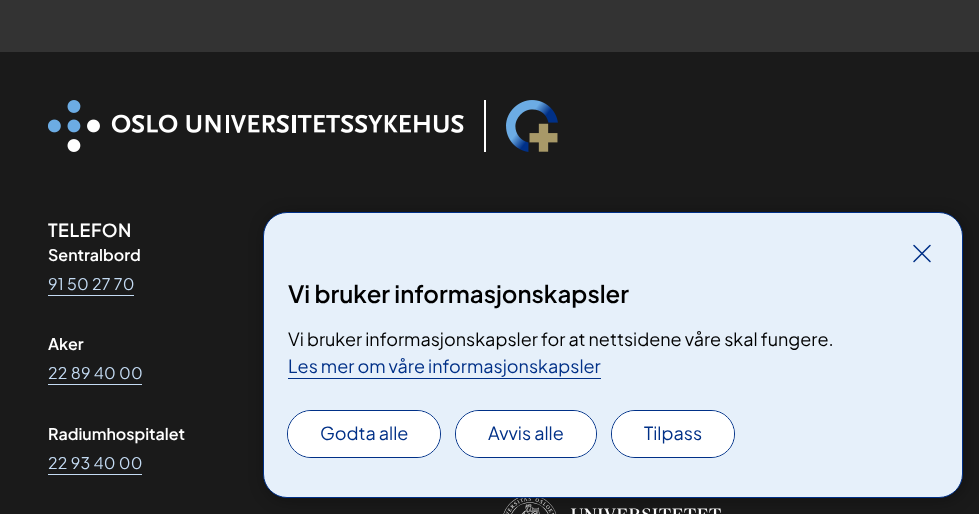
<svg xmlns="http://www.w3.org/2000/svg" width="979" height="514">
<style>
.a{font:600 18px Plus Jakarta Sans;letter-spacing:0.5px;fill:#fff}
.b{font:600 16px Plus Jakarta Sans;fill:#fff}
.c{font:16px Plus Jakarta Sans;letter-spacing:0.25px;fill:#c4dbf3}
.d{font:600 24px Plus Jakarta Sans;fill:#000}
.e{font:18px Plus Jakarta Sans;fill:#000}
.f{font:18px Plus Jakarta Sans;fill:#003087}
</style>
<rect width="100%" height="100%" fill="#333"/>
<path fill="#1a1a1a" d="M0 52h979v462H0z"/>
<image href="1.png" x="48" y="100" width="510" height="52"/>
<path fill="#c4dbf3" d="M48 295h86v1H48z"/>
<path fill="#c4dbf3" d="M48 384h94v1H48z"/>
<path fill="#c4dbf3" d="M48 474h94v1H48z"/>
<image href="2.png" x="503" y="498" width="218" height="16"/>
<rect fill="#00000052" filter="blur(8px)" x="265" y="214" width="700" height="286" rx="24"/>
<rect fill="#e6f0fa" stroke="#003087" x="263.5" y="212.5" width="699" height="285" rx="23.5"/>
<path fill="none" stroke="#003087" stroke-width="1.5" stroke-linecap="round" d="M914 245.5l16 16m-16 0l16-16"/>
<path fill="#003087" d="M288 378h313v1H288z"/>
<rect fill="none" stroke="#003087" x="287.5" y="410.5" width="153" height="47" rx="23.5"/>
<rect fill="#fff" x="288" y="411" width="152" height="46" rx="23"/>
<rect fill="none" stroke="#003087" x="455.5" y="410.5" width="141" height="47" rx="23.5"/>
<rect fill="#fff" x="456" y="411" width="140" height="46" rx="23"/>
<rect fill="none" stroke="#003087" x="611.5" y="410.5" width="123" height="47" rx="23.5"/>
<rect fill="#fff" x="612" y="411" width="122" height="46" rx="23"/>
<text class="a" x="48" y="237">TELEFON</text>
<text class="b" x="48" y="261">Sentralbord</text>
<text class="c" x="48" y="290">91 50 27 70</text>
<text class="b" x="48" y="350">Aker</text>
<text class="c" x="48" y="379">22 89 40 00</text>
<text class="b" x="48" y="440">Radiumhospitalet</text>
<text class="c" x="48" y="469">22 93 40 00</text>
<text class="d" x="288" y="303">Vi bruker informasjonskapsler</text>
<text class="e" x="288" y="346">Vi bruker informasjonskapsler for at nettsidene våre skal fungere.</text>
<text class="f" x="288" y="373">Les mer om våre informasjonskapsler</text>
<text class="f" x="320" y="440">Godta alle</text>
<text class="f" x="488" y="440">Avvis alle</text>
<text class="f" x="644" y="440">Tilpass</text>
</svg>
